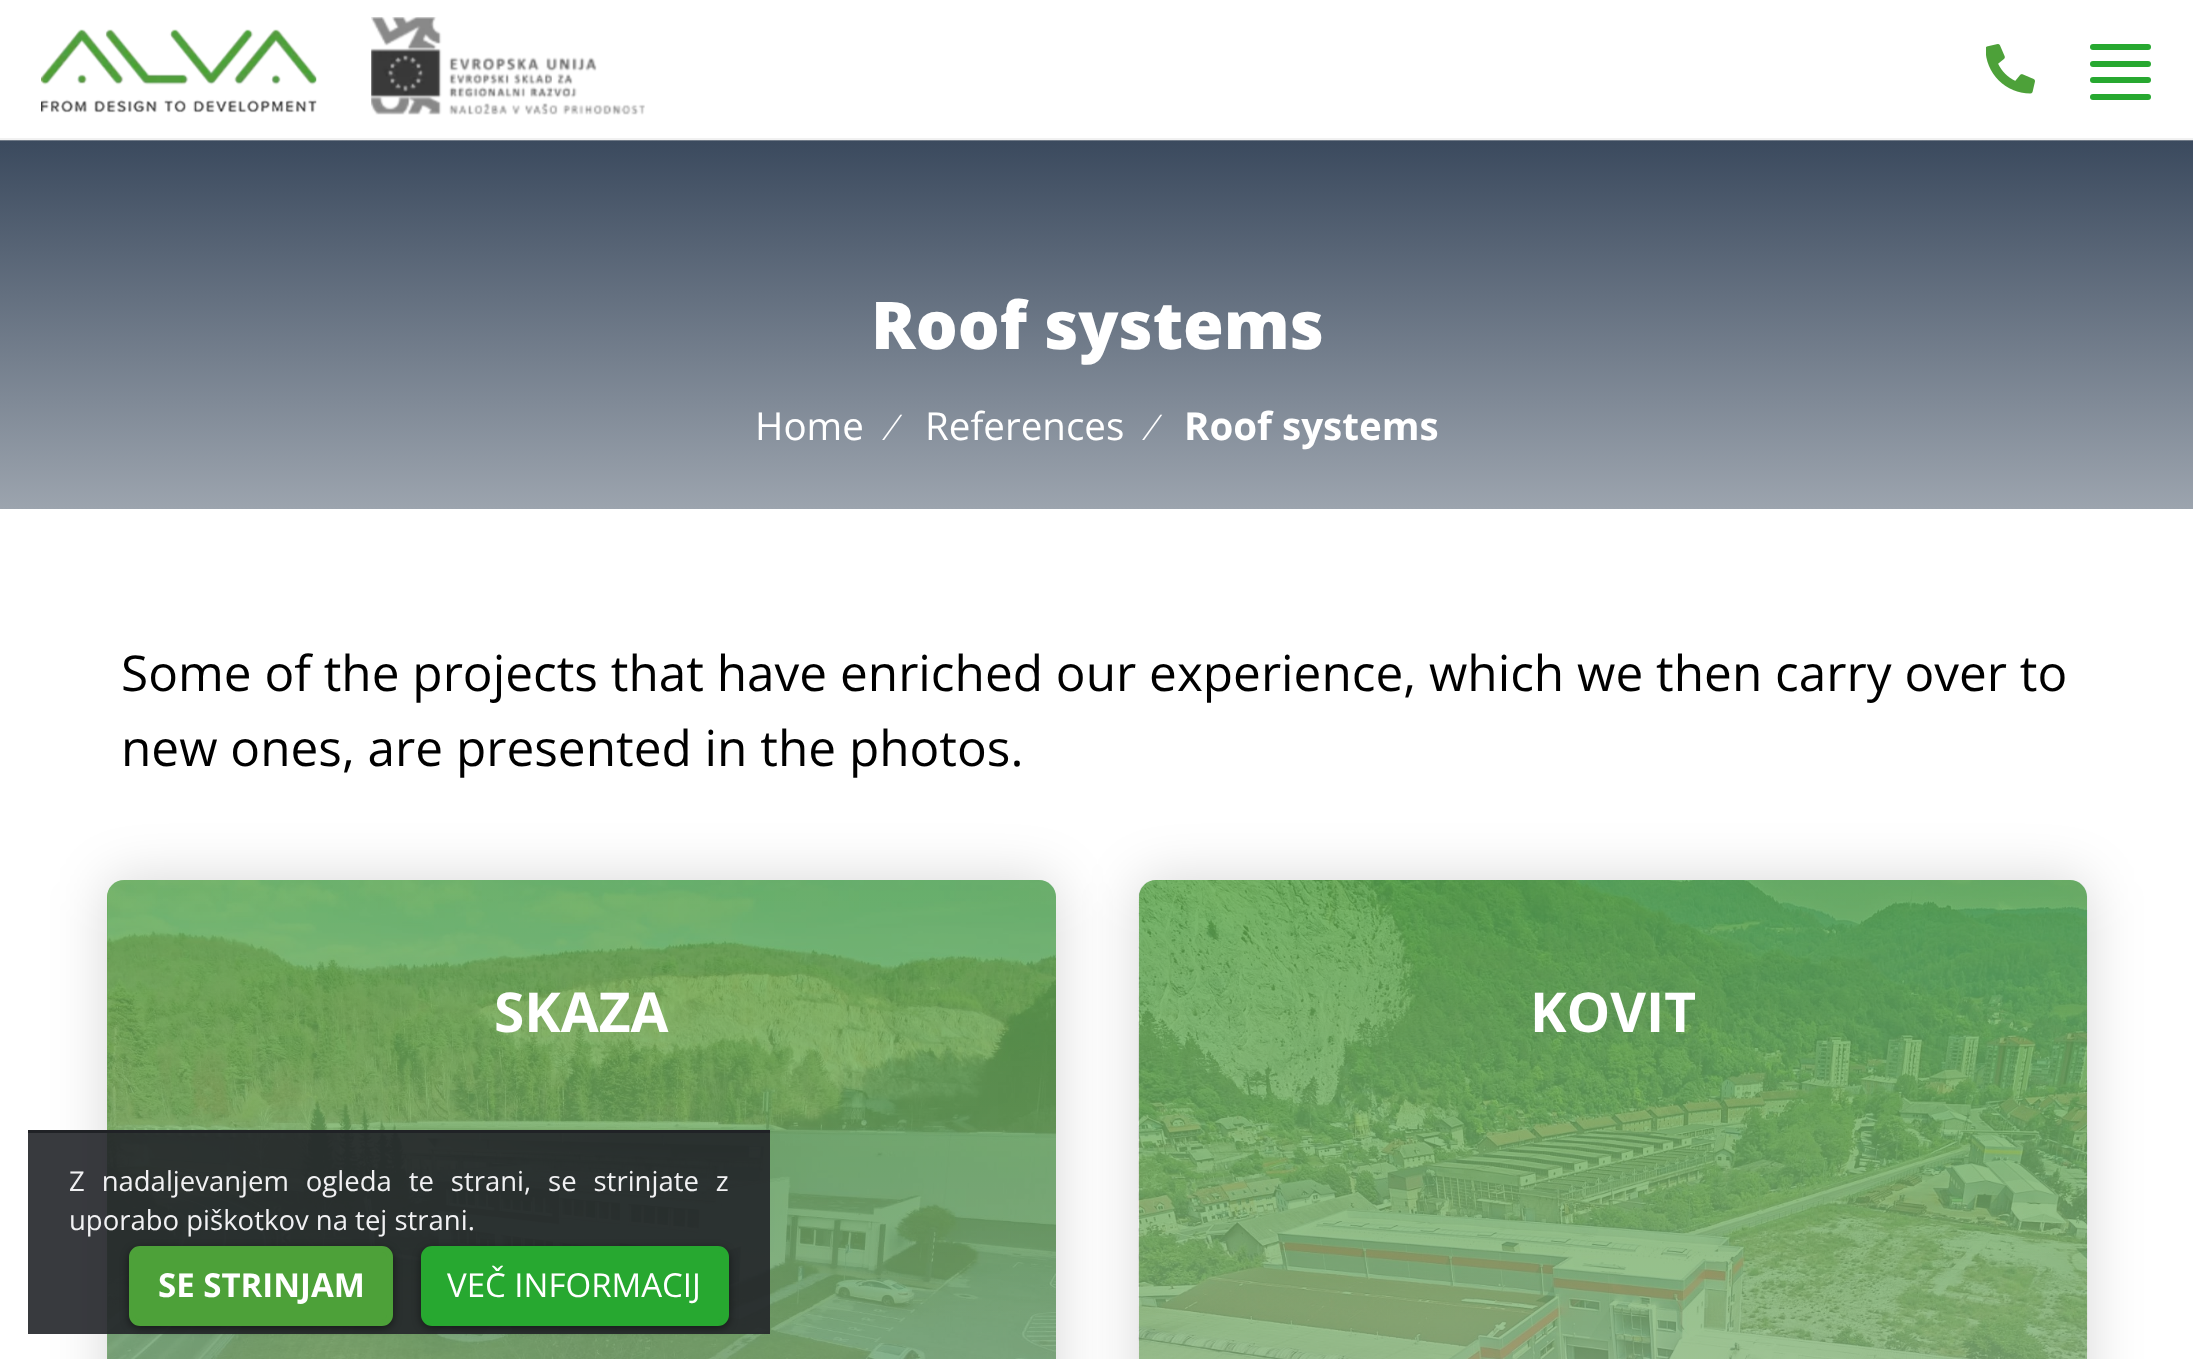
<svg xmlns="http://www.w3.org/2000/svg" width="2193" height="1359">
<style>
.a{font:800 66px Open Sans;fill:#fff}
.b{font:38.5px Open Sans;fill:#fff}
.c{font:38.5px Liberation Serif;fill:#fff}
.d{font:bold 38.5px Open Sans;fill:#fff}
.e{font:49.5px Open Sans;fill:#000}
.f{font:bold 55px Open Sans;fill:#fff}
.g{font:27.5px Open Sans;fill:#f1f1f3}
.h{font:bold 33px Open Sans;fill:#fff}
.i{font:33px Open Sans;fill:#fff}
</style>
<defs>
<linearGradient id="g1" gradientUnits="userSpaceOnUse" x1="1097" y1="0" x2="1097" y2="509"><stop offset="0" stop-color="#1f3047"/><stop offset="0.07" stop-color="#1f3047"/><stop offset="1" stop-color="#9ca4ae"/></linearGradient>
<linearGradient id="g2" gradientUnits="userSpaceOnUse" x1="1097" y1="0" x2="1097" y2="509"><stop offset="0" stop-color="#5f6a79"/><stop offset="0.07" stop-color="#5f6a79"/><stop offset="1" stop-color="#b0b6bc"/></linearGradient>
<clipPath id="clip1"><path d="M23 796h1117v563h-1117zm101 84h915c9.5 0 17 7.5 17 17v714c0 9.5-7.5 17-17 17h-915c-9.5 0-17-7.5-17-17v-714c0-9.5 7.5-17 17-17z" clip-rule="evenodd"/></clipPath>
<linearGradient id="g3" gradientUnits="userSpaceOnUse" x1="582" y1="880" x2="582" y2="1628"><stop offset="0" stop-color="#4da139" stop-opacity="0.91"/><stop offset="1" stop-color="#3f822e" stop-opacity="0.5"/></linearGradient>
<clipPath id="clip2"><path d="M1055 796h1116v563h-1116zm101 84h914c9.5 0 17 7.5 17 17v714c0 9.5-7.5 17-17 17h-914c-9.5 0-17-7.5-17-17v-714c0-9.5 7.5-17 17-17z" clip-rule="evenodd"/></clipPath>
<linearGradient id="g4" gradientUnits="userSpaceOnUse" x1="1613" y1="880" x2="1613" y2="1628"><stop offset="0" stop-color="#4da139" stop-opacity="0.91"/><stop offset="1" stop-color="#3f822e" stop-opacity="0.5"/></linearGradient>
</defs>
<rect width="100%" height="100%" fill="#fff"/>
<path fill="#f1f1f1" d="M0 138h2193v2H0z"/>
<image href="1.png" x="41" y="29" width="276" height="84"/>
<image href="2.png" x="371" y="17" width="274" height="98"/>
<image href="3.png" x="1986" y="44" width="49" height="50"/>
<rect fill="#27a830" x="2090" y="44" width="61" height="6" rx="3"/>
<rect fill="#27a830" x="2090" y="61" width="61" height="6" rx="3"/>
<rect fill="#27a830" x="2090" y="77" width="61" height="6" rx="3"/>
<rect fill="#27a830" x="2090" y="94" width="61" height="6" rx="3"/>
<path fill="url(#g1)" d="M0 141h2193v368H0z"/>
<path fill="url(#g2)" d="M0 140h2193v1H0z"/>
<g clip-path="url(#clip1)">
<rect fill="#00000029" filter="blur(27.5px)" x="107" y="880" width="949" height="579" rx="17"/>
</g>
<rect fill="url(#g3)" x="107" y="880" width="949" height="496" rx="17"/>
<image href="4.png" x="107" y="880" width="949" height="479"/>
<g clip-path="url(#clip2)">
<rect fill="#00000029" filter="blur(27.5px)" x="1139" y="880" width="948" height="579" rx="17"/>
</g>
<rect fill="url(#g4)" x="1139" y="880" width="948" height="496" rx="17"/>
<image href="5.png" x="1138" y="880" width="950" height="479"/>
<path fill="#323a4580" d="M28 1133h742v201H28z"/>
<path fill="#202226" d="M28 1130h742v3H28z"/>
<path fill="#202226cc" d="M28 1133h742v201H28z"/>
<rect fill="#00000080" filter="blur(4px)" x="129" y="1249" width="264" height="79" rx="11"/>
<rect fill="#4da139" stroke="#4da139" stroke-width="6" x="132" y="1249" width="258" height="74" rx="8"/>
<rect fill="#00000080" filter="blur(4px)" x="421" y="1249" width="308" height="79" rx="11"/>
<rect fill="#27a830" stroke="#27a830" stroke-width="6" x="424" y="1249" width="302" height="74" rx="8"/>
<text class="a" x="871" y="349">Roof systems</text>
<text class="b" x="755" y="440">Home</text>
<text class="c" x="889" y="440">∕</text>
<text class="b" x="925" y="440">References</text>
<text class="c" x="1149" y="440">∕</text>
<text class="d" x="1184" y="440">Roof systems</text>
<text class="e" x="121" y="691">Some of the projects that have enriched our experience, which we then carry over to</text>
<text class="e" x="121" y="766">new ones, are presented in the photos.</text>
<text class="f" x="494" y="1032">SKAZA</text>
<text class="f" x="1530" y="1032">KOVIT</text>
<text class="g" x="69" y="1191" word-spacing="9.75">Z nadaljevanjem ogleda te strani, se strinjate z</text>
<text class="g" x="69" y="1230">uporabo piškotkov na tej strani.</text>
<text class="h" x="158" y="1297">SE STRINJAM</text>
<text class="i" x="447" y="1297">VEČ INFORMACIJ</text>
</svg>
